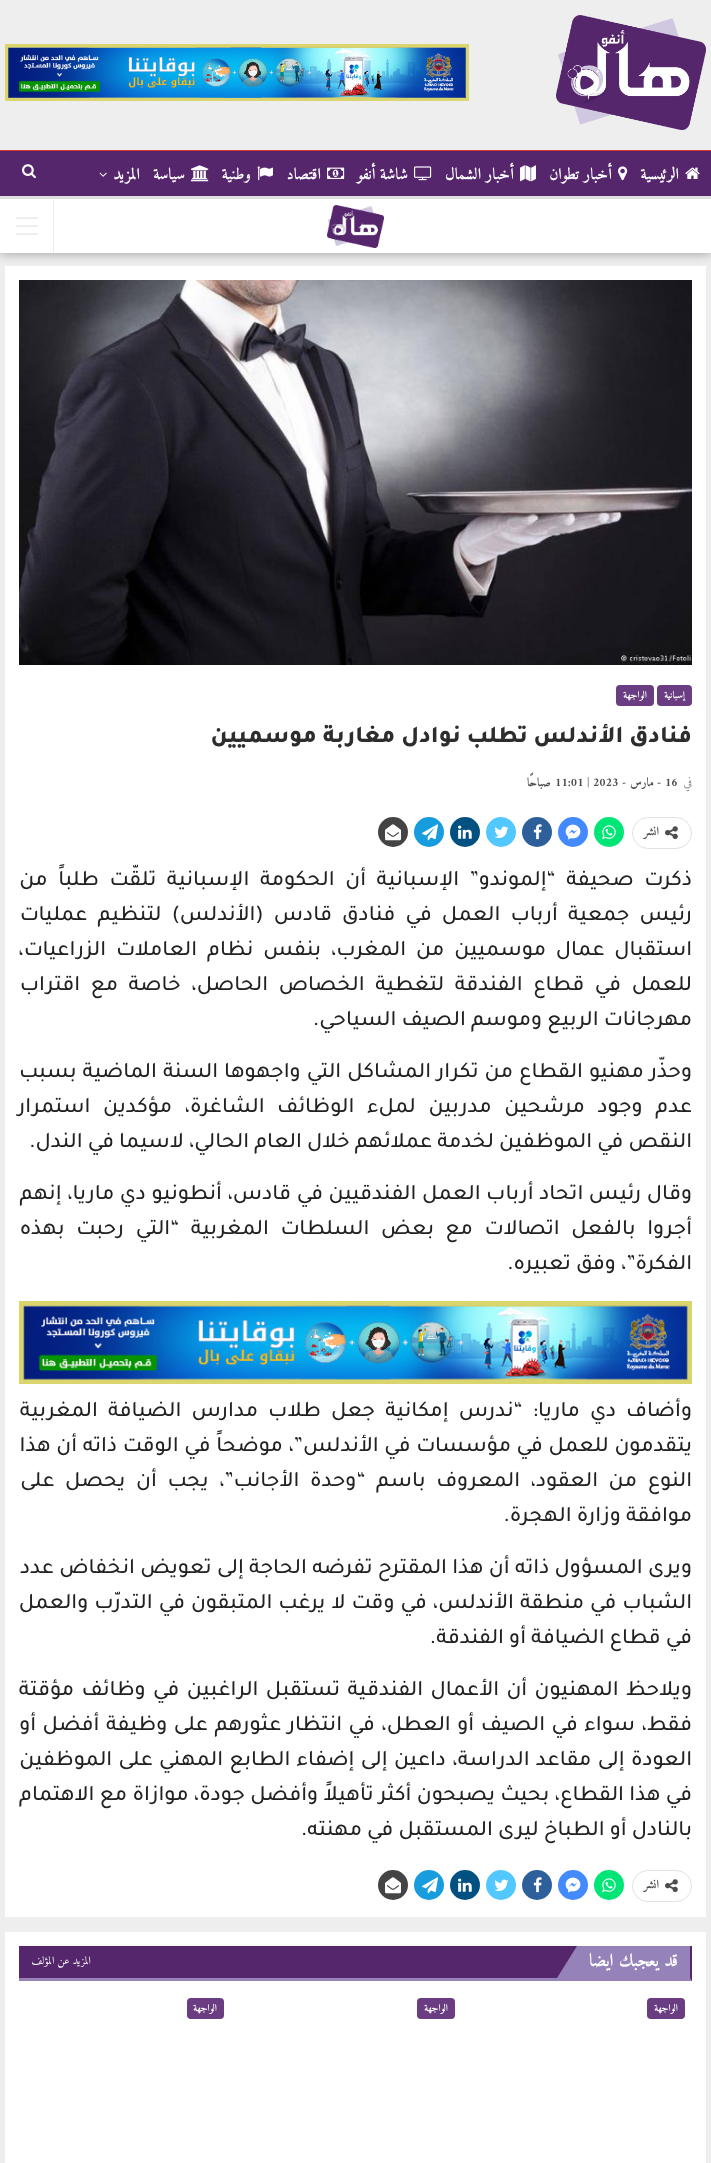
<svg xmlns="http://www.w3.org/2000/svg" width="711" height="2163">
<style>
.a{font:bold 16px Amiri;direction:rtl;fill:#fff}
.b{font:bold 10px Amiri;direction:rtl;fill:#fff}
.c{font:800 24px Tajawal;direction:rtl;fill:#2d2d2d}
.d{font:12px Amiri;direction:rtl;fill:#8f8f8f}
.e{font:bold 12px Amiri;fill:#4d4d4d}
.f{font:bold 12px Amiri;direction:rtl;fill:#4d4d4d}
.g{font:500 22px Tajawal;direction:rtl;fill:#222}
.h{font:bold 18px Amiri;direction:rtl;fill:#fff}
.i{font:11px Amiri;direction:rtl;fill:#fff}
</style>
<rect width="100%" height="100%" fill="#eee"/>
<image href="1.png" x="556" y="15" width="150" height="115"/>
<image href="2.png" x="5" y="44" width="464" height="57"/>
<path fill="#757575ba" filter="blur(6px)" d="M0 199h711v54H0z"/>
<path fill="#56266d" d="M0 151h711v45H0z"/>
<path fill="#d33" d="M0 150h711v1H0z"/>
<path fill="#dedede" d="M0 196h711v3H0z"/>
<image href="3.png" x="685" y="167" width="15" height="12"/>
<image href="4.png" x="618" y="166" width="10" height="15"/>
<image href="5.png" x="520" y="165" width="16" height="17"/>
<image href="6.png" x="414" y="166" width="18" height="15"/>
<image href="7.png" x="327" y="167" width="18" height="12"/>
<image href="8.png" x="257" y="166" width="16" height="15"/>
<image href="9.png" x="191" y="165" width="18" height="17"/>
<image href="10.png" x="99" y="172" width="8" height="5"/>
<image href="11.png" x="22" y="164" width="14" height="15"/>
<path fill="#fff" d="M0 199h711v54H0z"/>
<image href="12.png" x="327" y="205" width="57" height="43"/>
<path fill="#ededed" d="M53 199h1v54H53z"/>
<path fill="#ecf0f1" d="M16 225h22v2H16z"/>
<path fill="#ecf0f1" d="M16 217h22v2H16z"/>
<path fill="#ecf0f1" d="M16 233h22v2H16z"/>
<path fill="#fff" d="M5 266h701v1651H5z"/>
<image href="13.png" x="19" y="280" width="673" height="385"/>
<rect fill="#6a3c81" x="657" y="685" width="35" height="21" rx="4"/>
<rect fill="#6a3c81" x="616" y="685" width="38" height="21" rx="4"/>
<rect fill="none" stroke="#e2e2e2" x="632.5" y="817.5" width="59" height="31" rx="15.5"/>
<image href="14.png" x="665" y="826" width="13" height="14"/>
<circle fill="#00e676" cx="609" cy="832" r="15"/>
<image href="15.png" x="602" y="825" width="14" height="15"/>
<circle fill="#448aff" cx="573" cy="832" r="15"/>
<image href="16.png" x="565" y="824" width="16" height="16"/>
<circle fill="#2d5f9a" cx="537" cy="832" r="15"/>
<image href="17.png" x="533" y="824" width="9" height="16"/>
<circle fill="#53c7ff" cx="501" cy="832" r="15"/>
<image href="18.png" x="494" y="826" width="15" height="12"/>
<circle fill="#005182" cx="465" cy="832" r="15"/>
<image href="19.png" x="458" y="825" width="14" height="14"/>
<circle fill="#179cde" cx="429" cy="832" r="15"/>
<image href="20.png" x="422" y="824" width="16" height="17"/>
<circle fill="#444" cx="393" cy="832" r="15"/>
<image href="21.png" x="385" y="824" width="16" height="17"/>
<image href="22.png" x="19" y="1301" width="673" height="83"/>
<rect fill="none" stroke="#e2e2e2" x="632.5" y="1870.5" width="59" height="31" rx="15.5"/>
<image href="14.png" x="665" y="1879" width="13" height="14"/>
<circle fill="#00e676" cx="609" cy="1885" r="15"/>
<image href="15.png" x="602" y="1878" width="14" height="15"/>
<circle fill="#448aff" cx="573" cy="1885" r="15"/>
<image href="16.png" x="565" y="1877" width="16" height="16"/>
<circle fill="#2d5f9a" cx="537" cy="1885" r="15"/>
<image href="17.png" x="533" y="1877" width="9" height="16"/>
<circle fill="#53c7ff" cx="501" cy="1885" r="15"/>
<image href="18.png" x="494" y="1879" width="15" height="12"/>
<circle fill="#005182" cx="465" cy="1885" r="15"/>
<image href="19.png" x="458" y="1878" width="14" height="14"/>
<circle fill="#179cde" cx="429" cy="1885" r="15"/>
<image href="20.png" x="422" y="1877" width="16" height="17"/>
<circle fill="#444" cx="393" cy="1885" r="15"/>
<image href="21.png" x="385" y="1877" width="16" height="17"/>
<path fill="#fff" d="M5 1932h701v231H5z"/>
<path fill="#56266d" d="M19 1946h673v35H19z"/>
<path fill="#9482b9" d="M692 1981h-673v-3h671z"/>
<path fill="#9482b9" d="M577 1946h113v32H577z"/>
<path fill="#9482b9" d="M597 1978h-40l20-32z"/>
<rect fill="#6a3c81" x="647" y="1998" width="38" height="21" rx="4"/>
<rect fill="#6a3c81" x="417" y="1998" width="38" height="21" rx="4"/>
<rect fill="#6a3c81" x="187" y="1998" width="37" height="21" rx="4"/>
<text class="a" x="679" y="179">الرئيسية</text>
<text class="a" x="612" y="179">أخبار تطوان</text>
<text class="a" x="514" y="179">أخبار الشمال</text>
<text class="a" x="408" y="179">شاشة أنفو</text>
<text class="a" x="321" y="179">اقتصاد</text>
<text class="a" x="251" y="179">وطنية</text>
<text class="a" x="185" y="179">سياسة</text>
<text class="a" x="140" y="179">المزيد</text>
<text class="b" x="685" y="698">إسبانية</text>
<text class="b" x="647" y="698">الواجهة</text>
<text class="c" x="692" y="742">فنادق الأندلس تطلب نوادل مغاربة موسميين</text>
<text class="d" x="692" y="786">في</text>
<text class="e" x="657" y="786">- 16</text>
<text class="f" x="654" y="786">مارس -</text>
<text class="e" x="555" y="786">11:01 | 2023</text>
<text class="f" x="551" y="786">صباحًا</text>
<text class="f" x="659" y="835">انشر</text>
<text class="g" x="692" y="885" word-spacing="5.5">ذكرت صحيفة “إلموندو” الإسبانية أن الحكومة الإسبانية تلقّت طلباً من</text>
<text class="g" x="692" y="920" word-spacing="5">رئيس جمعية أرباب العمل في فنادق قادس (الأندلس) لتنظيم عمليات</text>
<text class="g" x="692" y="955" word-spacing="4.75">استقبال عمال موسميين من المغرب، بنفس نظام العاملات الزراعيات،</text>
<text class="g" x="692" y="990" word-spacing="5.5">للعمل في قطاع الفندقة لتغطية الخصاص الحاصل، خاصة مع اقتراب</text>
<text class="g" x="692" y="1025">مهرجانات الربيع وموسم الصيف السياحي.</text>
<text class="g" x="692" y="1077" word-spacing="0.9">وحذّر مهنيو القطاع من تكرار المشاكل التي واجهوها السنة الماضية بسبب</text>
<text class="g" x="692" y="1112" word-spacing="7.5">عدم وجود مرشحين مدربين لملء الوظائف الشاغرة، مؤكدين استمرار</text>
<text class="g" x="692" y="1147">النقص في الموظفين لخدمة عملائهم خلال العام الحالي، لاسيما في الندل.</text>
<text class="g" x="692" y="1199" word-spacing="0.5">وقال رئيس اتحاد أرباب العمل الفندقيين في قادس، أنطونيو دي ماريا، إنهم</text>
<text class="g" x="692" y="1234" word-spacing="6.5">أجروا بالفعل اتصالات مع بعض السلطات المغربية “التي رحبت بهذه</text>
<text class="g" x="692" y="1269">الفكرة”، وفق تعبيره.</text>
<text class="g" x="692" y="1416" word-spacing="5">وأضاف دي ماريا: “ندرس إمكانية جعل طلاب مدارس الضيافة المغربية</text>
<text class="g" x="692" y="1451" word-spacing="0.5">يتقدمون للعمل في مؤسسات في الأندلس”، موضحاً في الوقت ذاته أن هذا</text>
<text class="g" x="692" y="1486" word-spacing="5.5">النوع من العقود، المعروف باسم “وحدة الأجانب”، يجب أن يحصل على</text>
<text class="g" x="692" y="1521">موافقة وزارة الهجرة.</text>
<text class="g" x="692" y="1573" word-spacing="0.25">ويرى المسؤول ذاته أن هذا المقترح تفرضه الحاجة إلى تعويض انخفاض عدد</text>
<text class="g" x="692" y="1608" word-spacing="0.9">الشباب في منطقة الأندلس، في وقت لا يرغب المتبقون في التدرّب والعمل</text>
<text class="g" x="692" y="1643">في قطاع الضيافة أو الفندقة.</text>
<text class="g" x="692" y="1695" word-spacing="2.25">ويلاحظ المهنيون أن الأعمال الفندقية تستقبل الراغبين في وظائف مؤقتة</text>
<text class="g" x="692" y="1730" word-spacing="1.4">فقط، سواء في الصيف أو العطل، في انتظار عثورهم على وظيفة أفضل أو</text>
<text class="g" x="692" y="1765" word-spacing="1.25">العودة إلى مقاعد الدراسة، داعين إلى إضفاء الطابع المهني على الموظفين</text>
<text class="g" x="692" y="1800" word-spacing="0.25">في هذا القطاع، بحيث يصبحون أكثر تأهيلاً وأفضل جودة، موازاة مع الاهتمام</text>
<text class="g" x="692" y="1835">بالنادل أو الطباخ ليرى المستقبل في مهنته.</text>
<text class="f" x="659" y="1888">انشر</text>
<text class="h" x="678" y="1966">قد يعجبك ايضا</text>
<text class="i" x="91" y="1964">المزيد عن المؤلف</text>
<text class="b" x="678" y="2011">الواجهة</text>
<text class="b" x="448" y="2011">الواجهة</text>
<text class="b" x="217" y="2011">الواجهة</text>
</svg>
